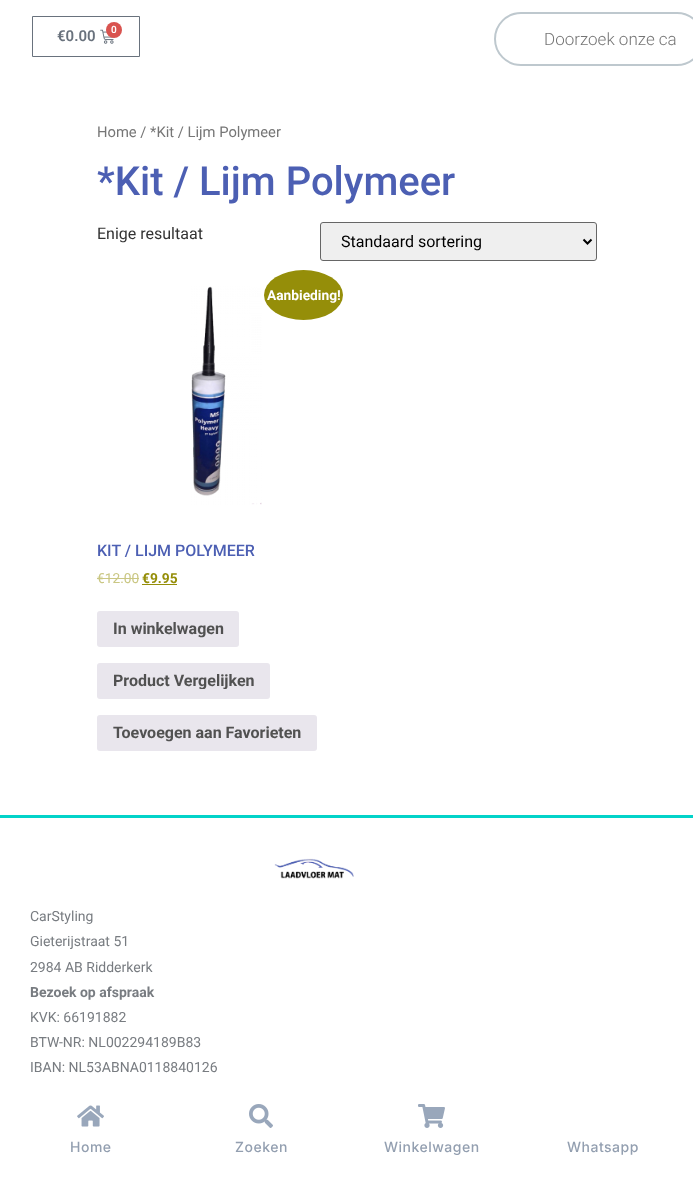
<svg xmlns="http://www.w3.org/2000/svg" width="693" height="1190">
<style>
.a{font:600 15px Roboto;fill:#69727d}
.b{font:600 10px Roboto;fill:#fff}
.c{font:300 17px Roboto;fill:#767676}
.d{font:14.75px Roboto;fill:#767676}
.e{font:500 40px Roboto;fill:#4c5fb3}
.f{font:16px Roboto;fill:#333}
.g{font:16px Roboto;fill:#000}
.h{font:bold 13.75px Roboto;fill:#fff}
.i{font:500 16px Roboto;fill:#4c5fb3}
.j{font:13.75px Roboto;fill:#cac784}
.k{font:bold 13.75px Roboto;fill:#958e09}
.l{font:bold 16px Roboto;fill:#515151}
.m{font:14px Roboto;fill:#787c81}
.n{font:bold 14px Roboto;fill:#787c81}
.o{font:500 14px Inter;letter-spacing:0.5px;fill:#939fb0}
</style>
<defs>
<clipPath id="clip1"><path d="M113 673h141v16H113z"/></clipPath>
</defs>
<rect width="100%" height="100%" fill="#fff"/>
<path fill="none" stroke="#69727d" d="M32.5 16.5h107v40H32.5z"/>
<image href="1.png" x="100" y="29" width="14" height="15"/>
<circle fill="#d9534f" cx="114" cy="30" r="8"/>
<rect fill="none" stroke="#bec8ce" stroke-width="2" x="495" y="13" width="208" height="52" rx="26"/>
<rect fill="#efefef" stroke="#666" x="320.5" y="222.5" width="276" height="38" rx="2.5"/>
<path fill="none" stroke="#000" stroke-width="2" d="M583.5 239.5l4 4l4-4"/>
<image href="2.png" x="191" y="286" width="71" height="219"/>
<ellipse fill="#958e09" cx="303.5" cy="295" rx="39.5" ry="25"/>
<path fill="#cac784" d="M97 578h42v1H97z"/>
<path fill="#958e09" d="M142 584h35v1H142z"/>
<rect fill="#e9e6ed" x="97" y="611" width="142" height="36" rx="3"/>
<rect fill="#e9e6ed" x="97" y="663" width="173" height="36" rx="3"/>
<rect fill="#e9e6ed" x="97" y="715" width="220" height="36" rx="3"/>
<path fill="#02d3c9" d="M0 815h693v3H0z"/>
<image href="3.png" x="274" y="858" width="80" height="21"/>
<image href="4.png" x="77" y="1105" width="27" height="22"/>
<image href="5.png" x="249" y="1104" width="24" height="24"/>
<image href="6.png" x="418" y="1104" width="27" height="24"/>
<text class="a" x="57" y="41">€0.00</text>
<text class="b" x="111" y="33">0</text>
<text class="c" x="544" y="45">Doorzoek onze ca</text>
<text class="d" x="97" y="137">Home / *Kit / Lijm Polymeer</text>
<text class="e" x="97" y="195">*Kit / Lijm Polymeer</text>
<text class="f" x="97" y="239">Enige resultaat</text>
<text class="g" x="341" y="247">Standaard sortering</text>
<text class="h" x="267" y="300">Aanbieding!</text>
<text class="i" x="97" y="556">KIT / LIJM POLYMEER</text>
<text class="j" x="97" y="583">€12.00</text>
<text class="k" x="142" y="583">€9.95</text>
<text class="l" x="113" y="634">In winkelwagen</text>
<g clip-path="url(#clip1)">
<text class="l" x="113" y="686">Product Vergelijken</text>
</g>
<text class="l" x="113" y="738">Toevoegen aan Favorieten</text>
<text class="m" x="30" y="921">CarStyling</text>
<text class="m" x="30" y="946">Gieterijstraat 51</text>
<text class="m" x="30" y="972">2984 AB Ridderkerk</text>
<text class="n" x="30" y="997">Bezoek op afspraak</text>
<text class="m" x="30" y="1022">KVK: 66191882</text>
<text class="m" x="30" y="1047">BTW-NR: NL002294189B83</text>
<text class="m" x="30" y="1072">IBAN: NL53ABNA0118840126</text>
<text class="o" x="70" y="1152">Home</text>
<text class="o" x="235" y="1152">Zoeken</text>
<text class="o" x="384" y="1152">Winkelwagen</text>
<text class="o" x="567" y="1152">Whatsapp</text>
</svg>
